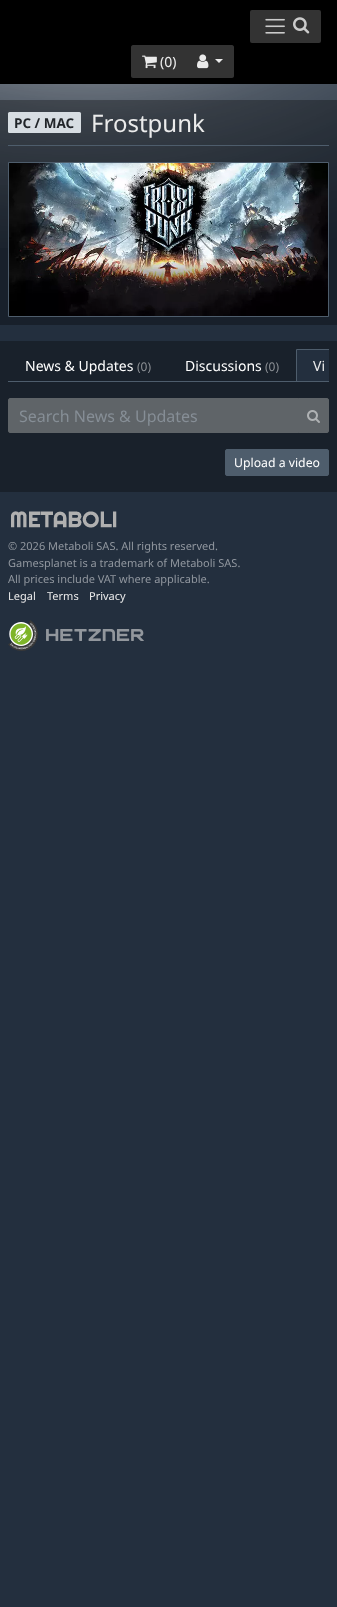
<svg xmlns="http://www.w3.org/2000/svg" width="337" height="1607">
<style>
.a{font:14px Noto Sans;fill:#ebebeb}
.b{font:bold 13.5px Noto Sans;fill:#212529}
.c{font:24px Noto Sans;fill:#ebebeb}
.d{font:14px Noto Sans;fill:#fff}
.e{font:12px Noto Sans;fill:#8c9095}
.f{font:16px Noto Sans;fill:#868e96}
.g{font:12.25px Noto Sans;fill:#fff}
.h{font:11px Noto Sans;fill:#91979f}
.i{font:11px Noto Sans;fill:#ebebeb}
</style>
<defs>
<clipPath id="clip1"><path d="M8 349h321v32H8z"/></clipPath>
</defs>
<rect width="100%" height="100%" fill="#232f3e"/>
<image href="1.png" x="0" y="84" width="337" height="164"/>
<path fill="#000" d="M0 0h337v84H0z"/>
<rect fill="#333" x="250" y="10" width="71" height="33" rx="2"/>
<image href="2.png" x="265" y="18" width="20" height="16"/>
<image href="3.png" x="293" y="17" width="17" height="17"/>
<path fill="#333" d="M133 45h54v33h-54c-1 0-2-1-2-2v-29c0-1 1-2 2-2z"/>
<image href="4.png" x="142" y="55" width="15" height="14"/>
<path fill="#333" d="M186 45h46c1 0 2 1 2 2v29c0 1-1 2-2 2h-46z"/>
<image href="5.png" x="197" y="54" width="12" height="15"/>
<path fill="#ebebeb" d="M215 59h8l-4 4z"/>
<path fill="#0000004d" d="M0 100h337v225H0z"/>
<rect fill="#d7dde2" x="8" y="112" width="73" height="21" rx="1.5"/>
<path fill="#4e5d6c" d="M8 145h321v1H8z"/>
<path fill="none" stroke="#4e5d6c" d="M8.5 162.5h320v154H8.5z"/>
<image href="6.png" x="9" y="163" width="319" height="153"/>
<path fill="#19212b" d="M0 341h337v151H0z"/>
<path fill="#4e5d6c" d="M8 381h321v1H8z"/>
<path fill="#232f3e" d="M297 350h32v31H297z"/>
<g clip-path="url(#clip1)">
<path fill="none" stroke="#4e5d6c" d="M296.5 349.5h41v32H296.5z"/>
</g>
<path fill="#5f6468" stroke="#5f6468" d="M10 398.5h288.5v34h-288.5c-1 0-1.5-.5-1.5-1.5v-31c0-1 .5-1.5 1.5-1.5z"/>
<path fill="#5f6468" stroke="#5f6468" d="M298.5 398.5h28.5c1 0 1.5 .5 1.5 1.5v31c0 1-.5 1.5-1.5 1.5h-28.5z"/>
<image href="7.png" x="307" y="410" width="13" height="13"/>
<rect fill="#4e5d6c" stroke="#4e5d6c" x="225.5" y="449.5" width="103" height="26" rx="1.5"/>
<image href="8.png" x="11" y="511" width="106" height="17"/>
<image href="9.png" x="8" y="620" width="30" height="31"/>
<image href="10.png" x="46" y="629" width="98" height="12"/>
<text class="a" x="160" y="67">(0)</text>
<text class="b" x="14" y="128">PC / MAC</text>
<text class="c" x="91" y="132">Frostpunk</text>
<text class="d" x="25" y="371">News &amp; Updates</text>
<text class="e" x="137" y="371">(0)</text>
<text class="d" x="185" y="371">Discussions</text>
<text class="e" x="265" y="371">(0)</text>
<text class="a" x="313" y="371">Vi</text>
<text class="f" x="19" y="422">Search News &amp; Updates</text>
<text class="g" x="234" y="467">Upload a video</text>
<text class="h" x="8" y="550">© 2026 Metaboli SAS. All rights reserved.</text>
<text class="h" x="8" y="567">Gamesplanet is a trademark of Metaboli SAS.</text>
<text class="h" x="8" y="583">All prices include VAT where applicable.</text>
<text class="i" x="8" y="600">Legal</text>
<text class="i" x="47" y="600">Terms</text>
<text class="i" x="89" y="600">Privacy</text>
</svg>
